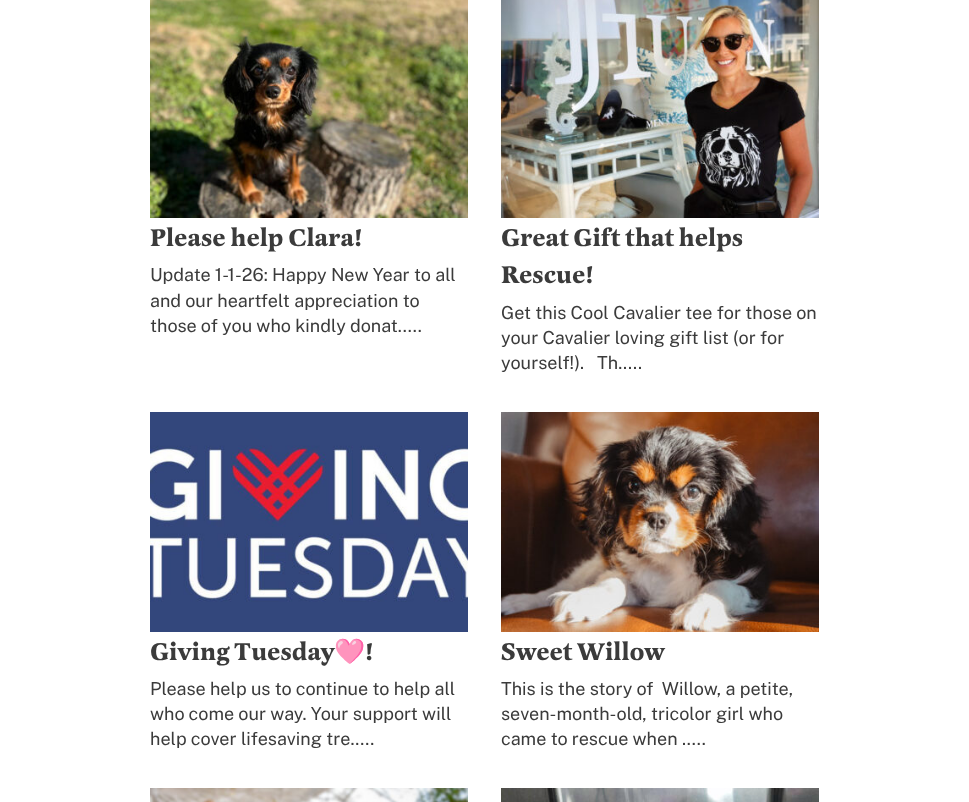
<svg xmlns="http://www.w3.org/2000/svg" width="969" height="802">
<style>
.a{font:bold 25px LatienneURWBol;fill:#3b3b3b}
.b{font:18px Public Sans;fill:#3b3b3b}
.c{font:bold 25px Noto Color Emoji;fill:#3b3b3b}
</style>
<rect width="100%" height="100%" fill="#fff"/>
<image href="1.png" x="150" y="0" width="318" height="218"/>
<image href="2.png" x="501" y="0" width="318" height="218"/>
<image href="3.png" x="150" y="412" width="318" height="220"/>
<image href="4.png" x="501" y="412" width="318" height="220"/>
<image href="5.png" x="150" y="788" width="318" height="14"/>
<image href="6.png" x="501" y="788" width="318" height="14"/>
<text class="a" x="150" y="246">Please help Clara!</text>
<text class="b" x="150" y="281">Update 1-1-26: Happy New Year to all</text>
<text class="b" x="150" y="307">and our heartfelt appreciation to</text>
<text class="b" x="150" y="332">those of you who kindly donat.....</text>
<text class="a" x="501" y="246">Great Gift that helps</text>
<text class="a" x="501" y="283">Rescue!</text>
<text class="b" x="501" y="319">Get this Cool Cavalier tee for those on</text>
<text class="b" x="501" y="344">your Cavalier loving gift list (or for</text>
<text class="b" xml:space="preserve" x="501" y="369">yourself!).   Th.....</text>
<text class="a" x="150" y="660">Giving Tuesday</text>
<text class="c" x="334" y="660">🩷</text>
<text class="a" x="365" y="660">!</text>
<text class="b" x="150" y="695">Please help us to continue to help all</text>
<text class="b" x="150" y="720">who come our way. Your support will</text>
<text class="b" x="150" y="745">help cover lifesaving tre.....</text>
<text class="a" x="501" y="660">Sweet Willow</text>
<text class="b" xml:space="preserve" x="501" y="695">This is the story of  Willow, a petite,</text>
<text class="b" x="501" y="720">seven-month-old, tricolor girl who</text>
<text class="b" x="501" y="745">came to rescue when .....</text>
</svg>
